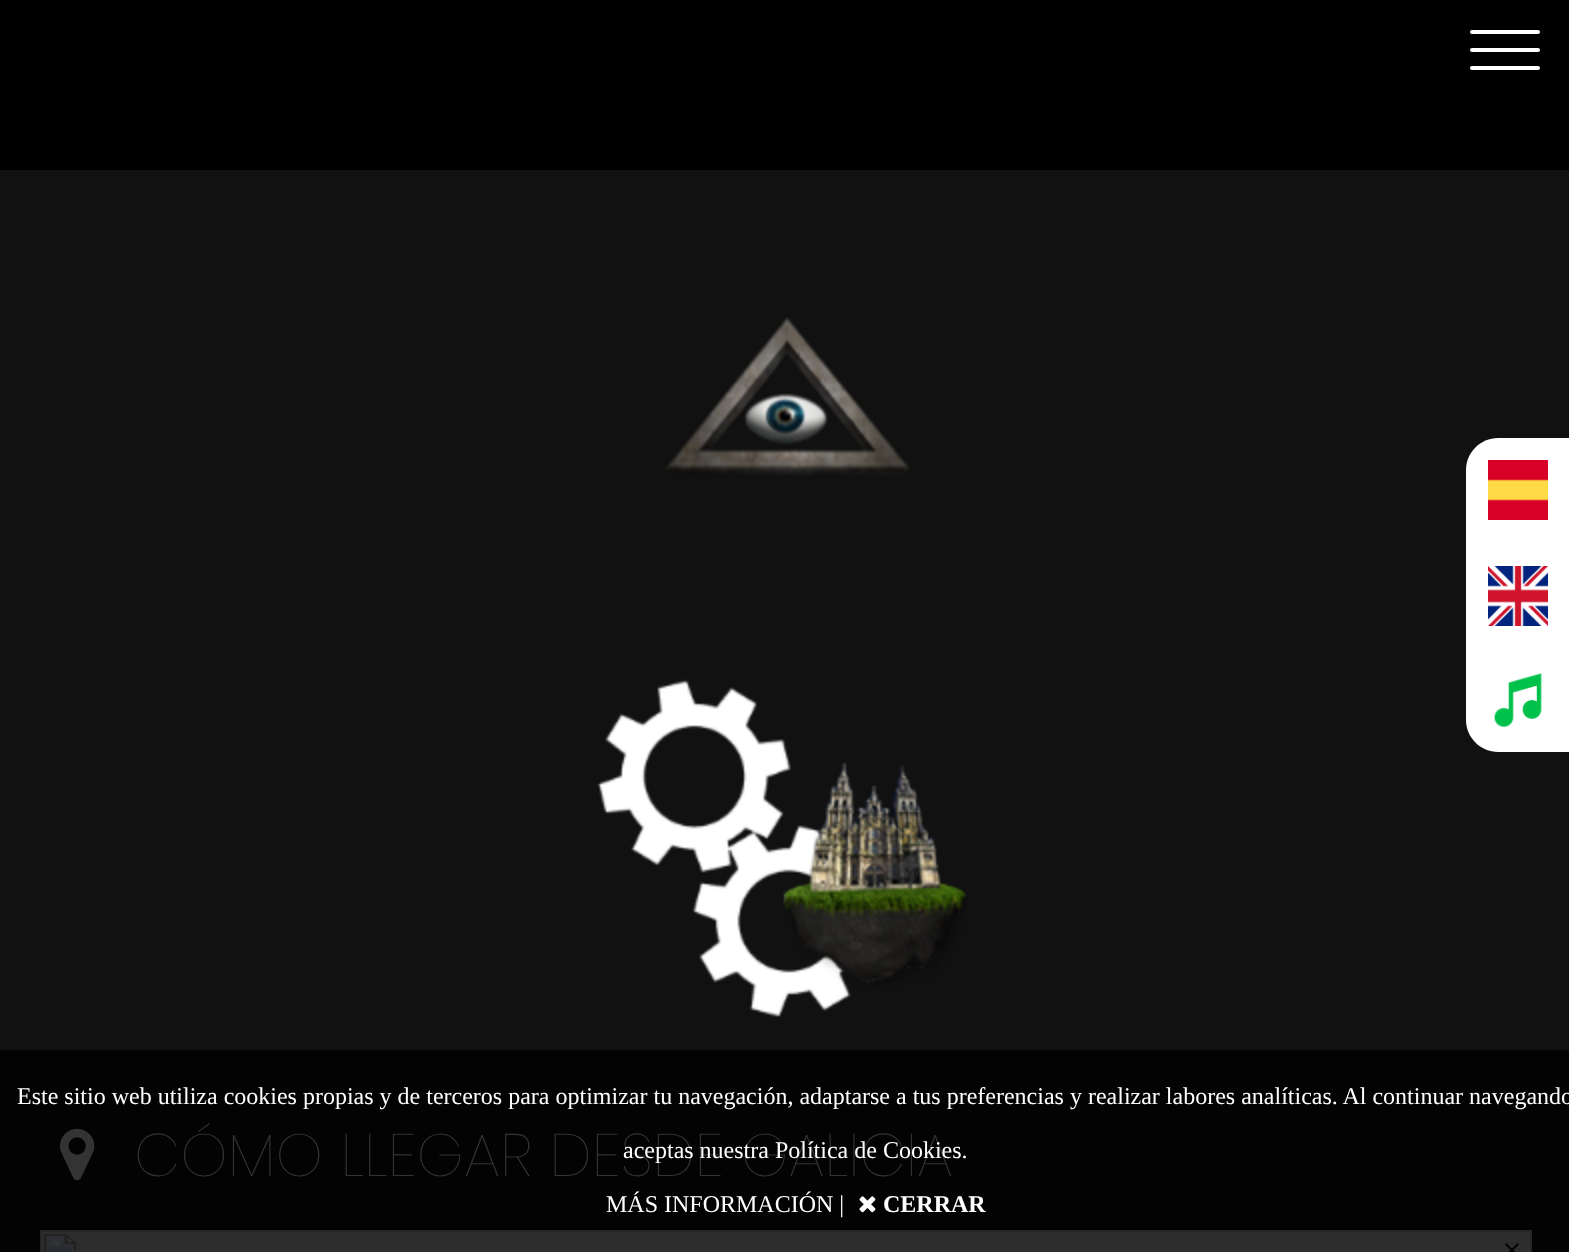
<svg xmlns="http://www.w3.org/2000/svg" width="1569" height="1252">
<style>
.a{font:24px Liberation Serif;fill:#fff}
.b{font:bold 24px Liberation Serif;fill:#fff}
.c{font:100 60px Poppins;fill:#333}
</style>
<rect width="100%" height="100%" fill="#000"/>
<rect fill="#fff" x="1470" y="30" width="70" height="4" rx="2"/>
<rect fill="#fff" x="1470" y="48" width="70" height="4" rx="2"/>
<rect fill="#fff" x="1470" y="66" width="70" height="4" rx="2"/>
<path fill="#030303" d="M0 1050h1569v202H0z"/>
<image href="1.png" x="859" y="1196" width="17" height="17"/>
<path fill="#111" d="M0 170h1569v880H0z"/>
<path fill="#fff" d="M1498 438h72v104h-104v-72c0-17.5 14.5-32 32-32z"/>
<image href="2.png" x="1488" y="460" width="60" height="60"/>
<path fill="#fff" d="M1466 542h103v106H1466z"/>
<image href="3.png" x="1488" y="566" width="60" height="60"/>
<path fill="#fff" d="M1466 648h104v104h-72c-17.5 0-32-14.5-32-32z"/>
<image href="4.png" x="1494" y="673" width="48" height="55"/>
<image href="5.png" x="597" y="317" width="370" height="700"/>
<image href="6.png" x="60" y="1128" width="35" height="53"/>
<image href="7.png" x="40" y="1230" width="1492" height="22"/>
<text class="a" x="17" y="1104">Este sitio web utiliza cookies propias y de terceros para optimizar tu navegación, adaptarse a tus preferencias y realizar labores analíticas. Al continuar navegando</text>
<text class="a" x="606" y="1212">MÁS INFORMACIÓN |</text>
<text class="b" x="883" y="1212">CERRAR</text>
<text class="c" x="134" y="1176">CÓMO LLEGAR DESDE GALICIA</text>
<text class="a" x="623" y="1158">aceptas nuestra Política de Cookies.</text>
</svg>
